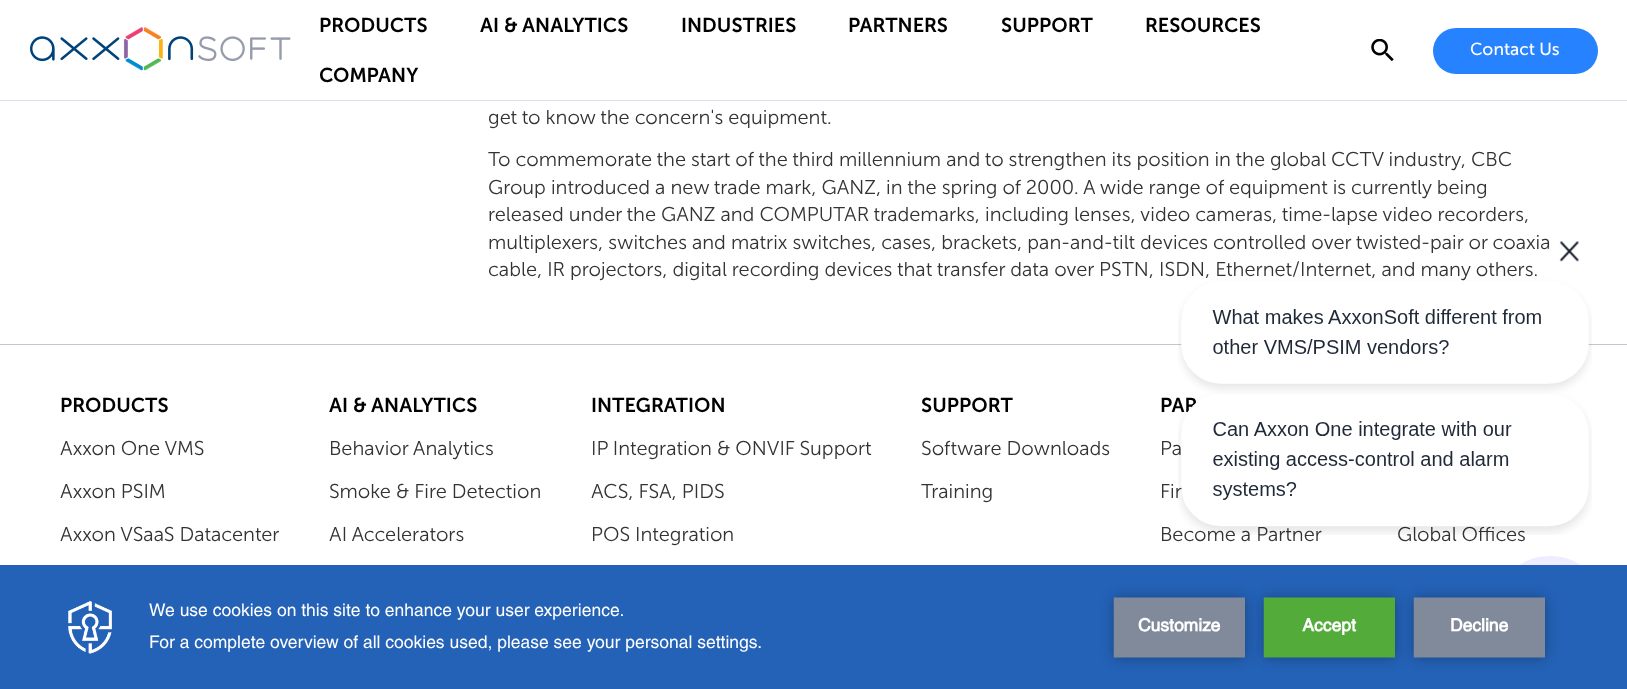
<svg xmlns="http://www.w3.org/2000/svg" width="1627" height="689">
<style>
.a{font:600 20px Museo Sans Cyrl;fill:#000}
.b{font:17.5px Museo Sans Cyrl;fill:#fff}
.c{font:300 20px Museo Sans Cyrl;fill:#333}
</style>
<rect width="100%" height="100%" fill="#fff"/>
<image href="1.png" x="30" y="27" width="261" height="44"/>
<image href="2.png" x="1371" y="39" width="23" height="22"/>
<rect fill="#2782ff" x="1433" y="28" width="165" height="46" rx="23"/>
<path fill="#d9e1eb" d="M0 100h1627v1H0z"/>
<path fill="#c0c7d1" d="M0 344h1627v1H0z"/>
<rect fill="none" stroke="#eeecfe" stroke-width="9" x="1498.5" y="560.5" width="103" height="104" rx="51.5"/>
<image href="4.png" x="0" y="565" width="1627" height="124"/>
<text class="a" x="319" y="32">PRODUCTS</text>
<text class="a" x="480" y="32">AI &amp; ANALYTICS</text>
<text class="a" x="681" y="32">INDUSTRIES</text>
<text class="a" x="848" y="32">PARTNERS</text>
<text class="a" x="1001" y="32">SUPPORT</text>
<text class="a" x="1145" y="32">RESOURCES</text>
<text class="a" x="319" y="82">COMPANY</text>
<text class="b" x="1470" y="55">Contact Us</text>
<text class="c" x="488" y="124">get to know the concern's equipment.</text>
<text class="c" x="488" y="166">To commemorate the start of the third millennium and to strengthen its position in the global CCTV industry, CBC</text>
<text class="c" x="488" y="194">Group introduced a new trade mark, GANZ, in the spring of 2000. A wide range of equipment is currently being</text>
<text class="c" x="488" y="221">released under the GANZ and COMPUTAR trademarks, including lenses, video cameras, time-lapse video recorders,</text>
<text class="c" x="488" y="249">multiplexers, switches and matrix switches, cases, brackets, pan-and-tilt devices controlled over twisted-pair or coaxia</text>
<text class="c" x="488" y="276">cable, IR projectors, digital recording devices that transfer data over PSTN, ISDN, Ethernet/Internet, and many others.</text>
<text class="a" x="60" y="412">PRODUCTS</text>
<text class="c" x="60" y="455">Axxon One VMS</text>
<text class="c" x="60" y="498">Axxon PSIM</text>
<text class="c" x="60" y="541">Axxon VSaaS Datacenter</text>
<text class="a" x="329" y="412">AI &amp; ANALYTICS</text>
<text class="c" x="329" y="455">Behavior Analytics</text>
<text class="c" x="329" y="498">Smoke &amp; Fire Detection</text>
<text class="c" x="329" y="541">AI Accelerators</text>
<text class="a" x="591" y="412">INTEGRATION</text>
<text class="c" x="591" y="455">IP Integration &amp; ONVIF Support</text>
<text class="c" x="591" y="498">ACS, FSA, PIDS</text>
<text class="c" x="591" y="541">POS Integration</text>
<text class="a" x="921" y="412">SUPPORT</text>
<text class="c" x="921" y="455">Software Downloads</text>
<text class="c" x="921" y="498">Training</text>
<text class="a" x="1160" y="412">PAR</text>
<text class="c" x="1160" y="455">Pa</text>
<text class="c" x="1160" y="498">Fin</text>
<text class="c" x="1160" y="541">Become a Partner</text>
<text class="c" x="1397" y="541">Global Offices</text>
<image href="3.png" x="1178" y="238" width="414" height="297"/>
</svg>
